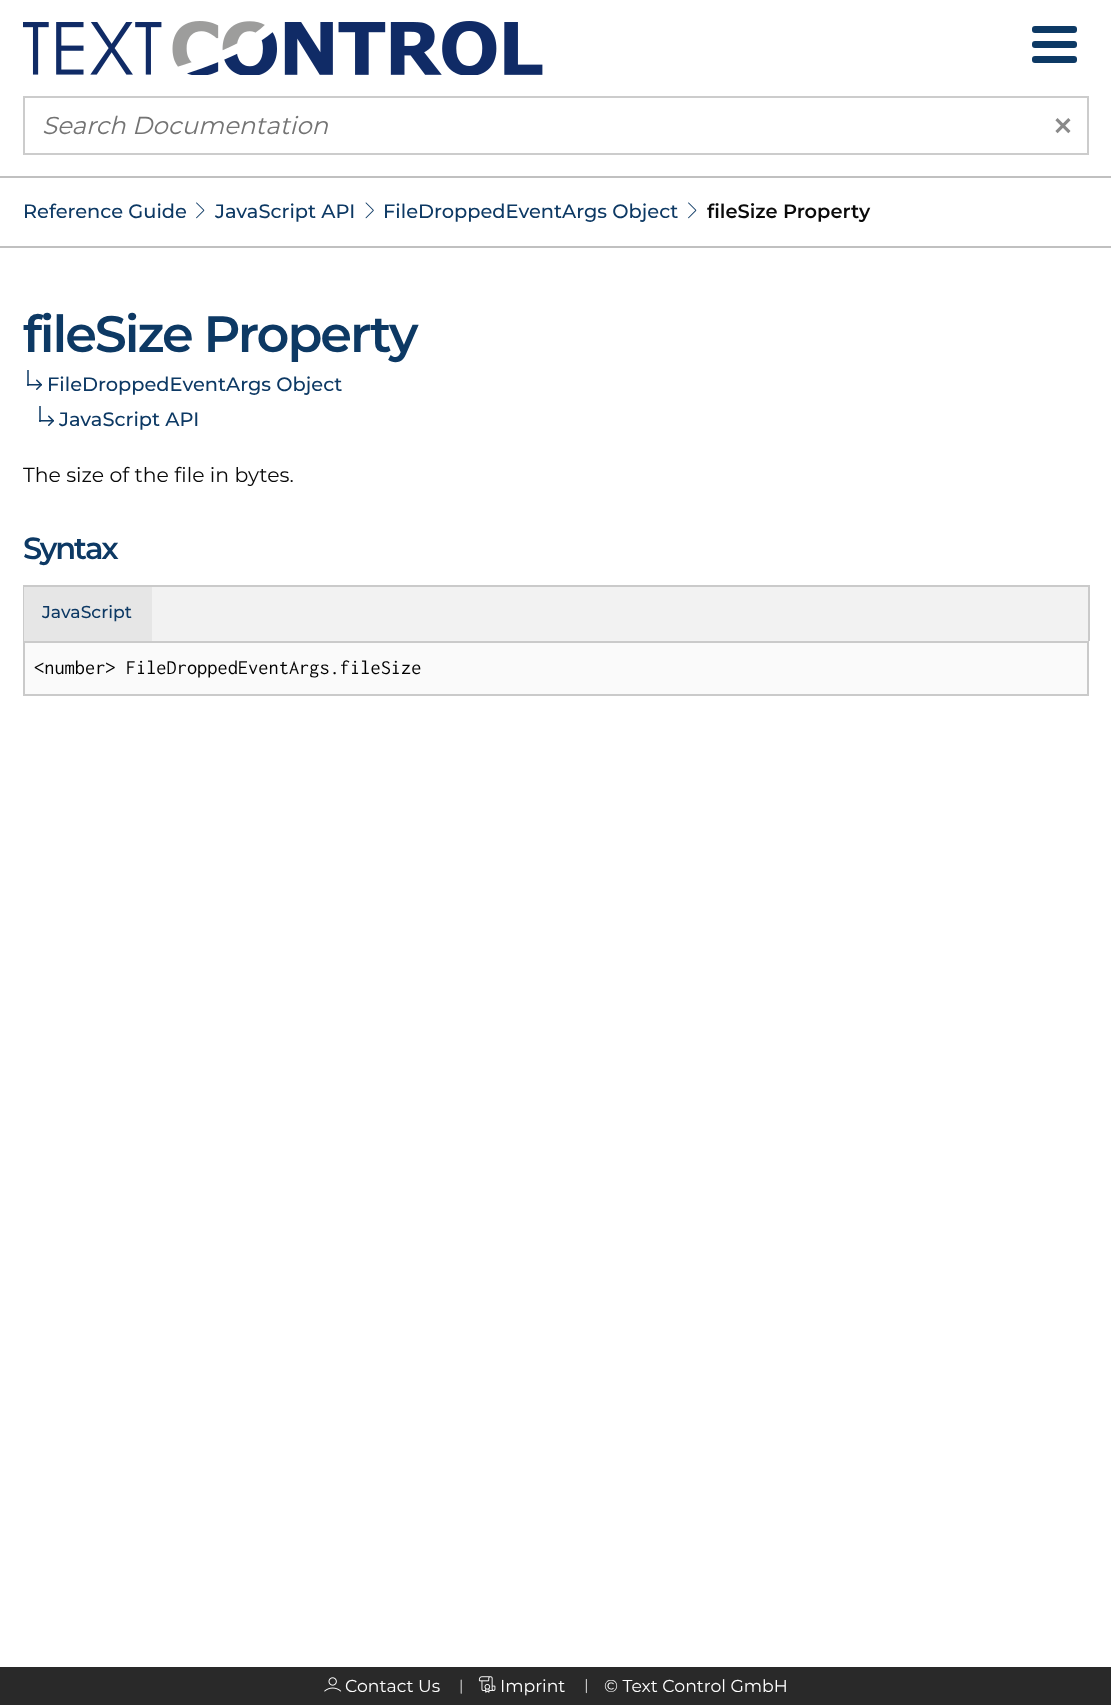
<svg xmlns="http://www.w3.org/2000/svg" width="1111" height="1705">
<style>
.a{font:italic 100 24.5px Montserrat;fill:#737373}
.b{font:100 41px Montserrat;fill:#8a8a8a}
.c{font:100 19.4px Montserrat;fill:#0d3964}
.d{font:100 19.4px 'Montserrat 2';fill:#0a0a0a}
.e{font:100 51px 'Montserrat 2';letter-spacing:-2.1px;fill:#0d3964}
.f{font:100 20.4px 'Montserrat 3';fill:#0a0a0a}
.g{font:100 30.5px 'Montserrat 2';letter-spacing:-2.1px;fill:#0d3964}
.h{font:100 17.25px Montserrat;fill:#0d3964}
.i{font:20.4px Inconsolata;fill:#000}
.j{font:100 17.25px 'Montserrat 3';fill:#fefefe}
</style>
<rect width="100%" height="100%" fill="#fff"/>
<image href="1.png" x="23" y="21" width="520" height="54"/>
<rect fill="#0d3964" x="1032" y="26" width="45" height="7" rx="3"/>
<rect fill="#0d3964" x="1032" y="41" width="45" height="7" rx="3"/>
<rect fill="#0d3964" x="1032" y="56" width="45" height="7" rx="3"/>
<path fill="none" stroke="#ccc" stroke-width="2" d="M24 97h1064v57H24z"/>
<path fill="#c0c0c0" d="M0 176h1111v2H0z"/>
<path fill="#c0c0c0" d="M0 246h1111v2H0z"/>
<image href="2.png" x="196" y="202" width="9" height="17"/>
<image href="3.png" x="365" y="202" width="9" height="17"/>
<image href="2.png" x="688" y="202" width="9" height="17"/>
<image href="4.png" x="27" y="370" width="15" height="20"/>
<image href="4.png" x="39" y="406" width="15" height="20"/>
<path fill="#f2f2f2" d="M152 587h936v54H152z"/>
<path fill="#cacaca" d="M23 585h1066v2H23z"/>
<path fill="#cacaca" d="M1088 585h2v56H1088z"/>
<path fill="#cacaca" d="M23 585h2v56H23z"/>
<path fill="#e6e6e6" d="M24 587h128v54H24z"/>
<path fill="#fafafa" stroke="#cacaca" stroke-width="2" d="M24 642h1064v53H24z"/>
<path fill="#292929" d="M0 1667h1111v38H0z"/>
<image href="5.png" x="324" y="1677" width="18" height="15"/>
<image href="6.png" x="460" y="1679" width="2" height="15"/>
<image href="7.png" x="478" y="1676" width="18" height="17"/>
<image href="8.png" x="585" y="1678" width="2" height="16"/>
<text class="a" x="42" y="134">Search Documentation</text>
<text class="b" x="1051" y="140">×</text>
<text class="c" x="23" y="218">Reference Guide</text>
<text class="c" x="215" y="218">JavaScript API</text>
<text class="c" x="383" y="218">FileDroppedEventArgs Object</text>
<text class="d" x="707" y="218">fileSize Property</text>
<text class="e" x="23" y="352">fileSize Property</text>
<text class="c" x="47" y="391">FileDroppedEventArgs Object</text>
<text class="c" x="59" y="426">JavaScript API</text>
<text class="f" x="23" y="482">The size of the file in bytes.</text>
<text class="g" x="23" y="559">Syntax</text>
<text class="h" x="42" y="618">JavaScript</text>
<text class="i" x="34" y="674">&lt;number&gt; FileDroppedEventArgs.fileSize</text>
<text class="j" x="345" y="1692">Contact Us</text>
<text class="j" x="500" y="1692">Imprint</text>
<text class="j" x="604" y="1692">© Text Control GmbH</text>
</svg>
